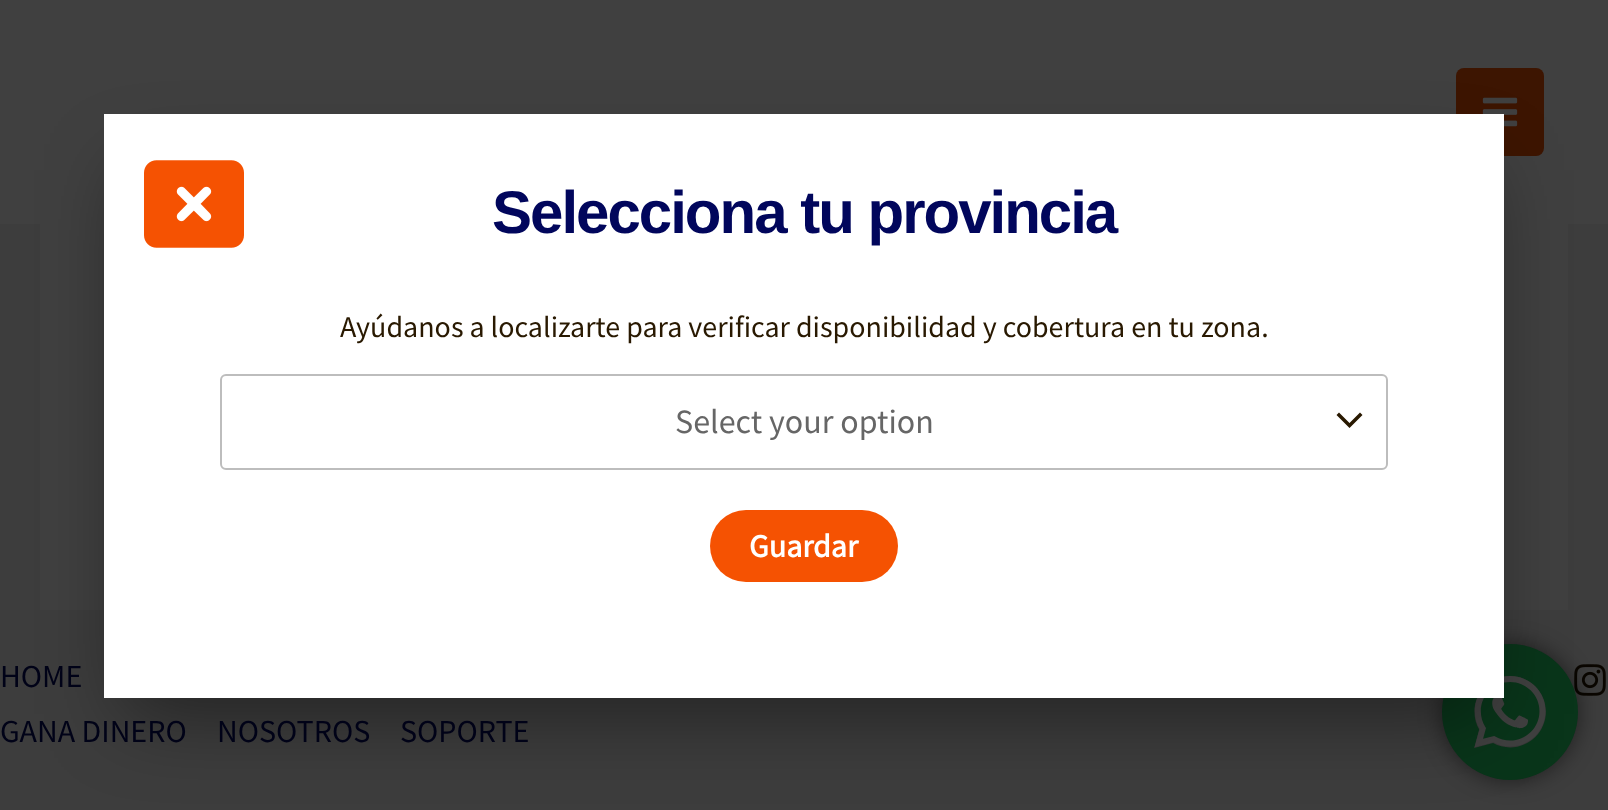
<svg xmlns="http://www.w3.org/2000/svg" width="1608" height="810">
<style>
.a{font:bold 60px Liberation Sans;letter-spacing:-2px;fill:#01065c}
.b{font:30px Source Sans Pro;fill:#291901}
.c{font:34px Source Sans Pro;fill:#666}
.d{font:bold 32px Source Sans Pro;fill:#fff}
.e{font:32px Source Sans Pro;fill:#000217}
</style>
<rect width="100%" height="100%" fill="#3d3d3d"/>
<path fill="#404040" d="M0 0h1608v224H0z"/>
<rect fill="#3d1501" x="1456" y="68" width="88" height="88" rx="8"/>
<image href="2.png" x="1482" y="97" width="36" height="30"/>
<path fill="#404040" d="M40 224h1528v386H40z"/>
<image href="3.png" x="1574" y="664" width="32" height="32"/>
<rect fill="#00000080" filter="blur(11px)" x="1442" y="644" width="136" height="136" rx="68"/>
<circle fill="#09351a" cx="1510" cy="712" r="68"/>
<image href="4.png" x="1474" y="676" width="72" height="72"/>
<path fill="#00000070" filter="blur(40px)" d="M124 170h1360v544H124z"/>
<path fill="#fff" d="M104 114h1400v584H104z"/>
<image href="1.png" x="144" y="160" width="100" height="88"/>
<path fill="#291901" d="M1336.5 415l13 13l13-13l-2.5-2.5l-10.5 10.5l-10.5-10.5z"/>
<rect fill="none" stroke="#bdbdbd" stroke-width="2" x="221" y="375" width="1166" height="94" rx="5"/>
<rect fill="#f55202" x="710" y="510" width="188" height="72" rx="36"/>
<text class="a" x="492" y="233">Selecciona tu provincia</text>
<text class="b" x="340" y="337">Ayúdanos a localizarte para verificar disponibilidad y cobertura en tu zona.</text>
<text class="c" x="675" y="433">Select your option</text>
<text class="d" x="749" y="557">Guardar</text>
<text class="e" x="0" y="687">HOME</text>
<text class="e" x="0" y="742">GANA DINERO</text>
<text class="e" x="217" y="742">NOSOTROS</text>
<text class="e" x="400" y="742">SOPORTE</text>
</svg>
